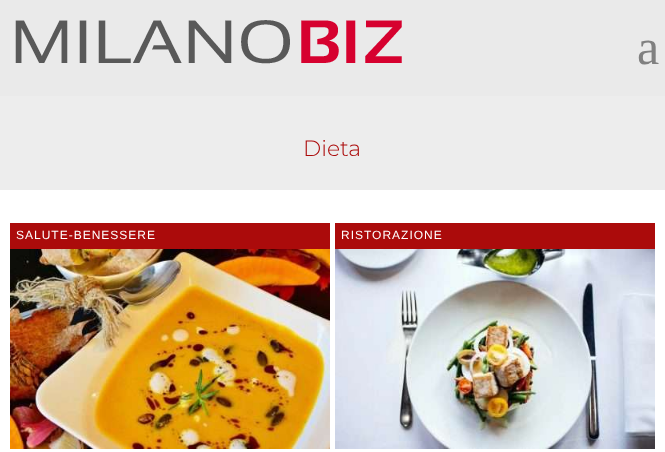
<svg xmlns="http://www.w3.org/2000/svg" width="665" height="452">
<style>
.a{font:50px Liberation Serif;fill:#808080}
.b{font:100 22px Montserrat;fill:#ab0b0b}
.c{font:12px Liberation Sans;letter-spacing:1px;fill:#fff}
</style>
<rect width="100%" height="100%" fill="#fff"/>
<path fill="#eaeaea" d="M0 0h665v96H0z"/>
<image href="1.png" x="15" y="20" width="387" height="44"/>
<path fill="#ededed" d="M0 96h665v94H0z"/>
<path fill="#ab0b0b" d="M10 223h320v26H10z"/>
<image href="2.png" x="10" y="249" width="320" height="200"/>
<path fill="#ab0b0b" d="M335 223h320v26H335z"/>
<image href="3.png" x="335" y="249" width="320" height="200"/>
<text class="a" x="637" y="64">a</text>
<text class="b" x="303" y="156">Dieta</text>
<text class="c" x="16" y="239">SALUTE-BENESSERE</text>
<text class="c" x="341" y="239">RISTORAZIONE</text>
</svg>
